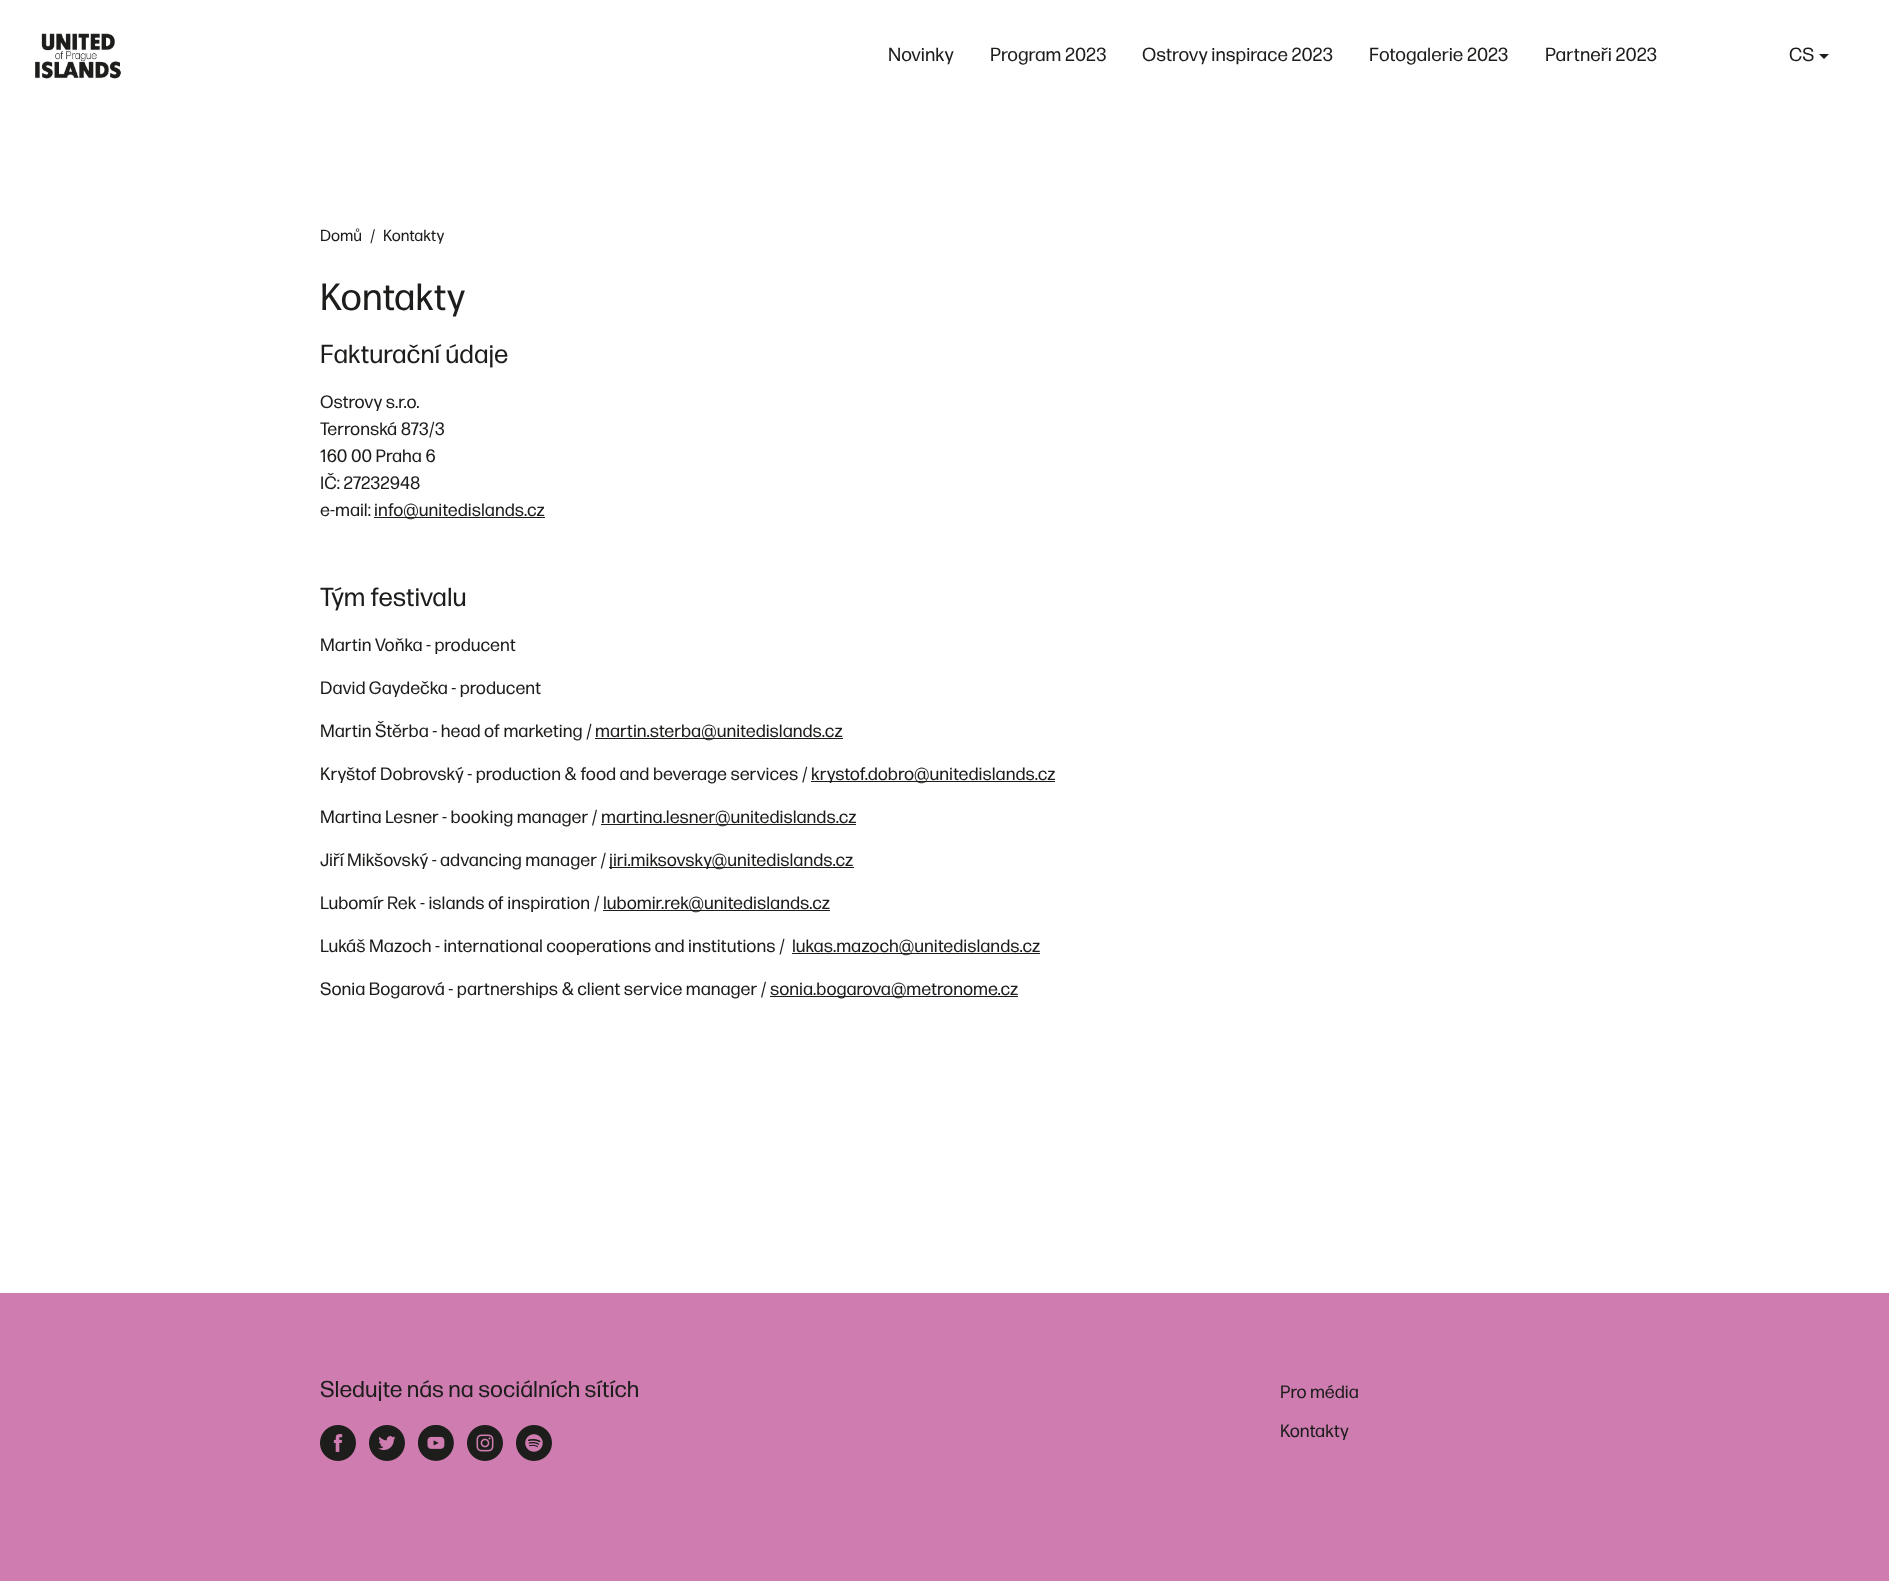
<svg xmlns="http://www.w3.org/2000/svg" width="1889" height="1581">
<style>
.a{font:19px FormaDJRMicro;fill:#1d1d1b}
.b{font:16px FormaDJRMicro;fill:#1d1d1b}
.c{font:38px FormaDJRMicro;fill:#1d1d1b}
.d{font:26px FormaDJRMicro;fill:#1d1d1b}
.e{font:18px FormaDJRMicro;fill:#1d1d1b}
.f{font:23px FormaDJRMicro;fill:#1d1d1b}
</style>
<rect width="100%" height="100%" fill="#fff"/>
<image href="1.png" x="35" y="33" width="86" height="46"/>
<path fill="#1d1d1b" d="M1819 54h10l-5 5z"/>
<path fill="#1d1d1b" d="M374 517h171v1H374z"/>
<path fill="#1d1d1b" d="M595 738h248v1H595z"/>
<path fill="#1d1d1b" d="M811 781h244v1H811z"/>
<path fill="#1d1d1b" d="M601 824h255v1H601z"/>
<path fill="#1d1d1b" d="M609 867h245v1H609z"/>
<path fill="#1d1d1b" d="M603 910h227v1H603z"/>
<path fill="#1d1d1b" d="M792 953h248v1H792z"/>
<path fill="#1d1d1b" d="M770 996h248v1H770z"/>
<path fill="#cf7db1" d="M0 1293h1889v288H0z"/>
<image href="2.png" x="320" y="1425" width="36" height="36"/>
<image href="3.png" x="369" y="1425" width="36" height="36"/>
<image href="4.png" x="418" y="1425" width="36" height="36"/>
<image href="5.png" x="467" y="1425" width="36" height="36"/>
<image href="6.png" x="516" y="1425" width="36" height="36"/>
<text class="a" x="888" y="61">Novinky</text>
<text class="a" x="990" y="61">Program 2023</text>
<text class="a" x="1142" y="61">Ostrovy inspirace 2023</text>
<text class="a" x="1369" y="61">Fotogalerie 2023</text>
<text class="a" x="1545" y="61">Partneři 2023</text>
<text class="a" x="1789" y="61">CS</text>
<text class="b" x="320" y="241">Domů</text>
<text class="b" x="370" y="241">/</text>
<text class="b" x="383" y="241">Kontakty</text>
<text class="c" x="320" y="310">Kontakty</text>
<text class="d" x="320" y="363">Fakturační údaje</text>
<text class="e" x="320" y="408">Ostrovy s.r.o.</text>
<text class="e" x="320" y="435">Terronská 873/3</text>
<text class="e" x="320" y="462">160 00 Praha 6</text>
<text class="e" x="320" y="489">IČ: 27232948</text>
<text class="e" x="320" y="516">e-mail:</text>
<text class="e" x="374" y="516">info@unitedislands.cz</text>
<text class="d" x="320" y="606">Tým festivalu</text>
<text class="e" x="320" y="651">Martin Voňka - producent</text>
<text class="e" x="320" y="694">David Gaydečka - producent</text>
<text class="e" x="320" y="737">Martin Štěrba - head of marketing /</text>
<text class="e" x="595" y="737">martin.sterba@unitedislands.cz</text>
<text class="e" x="320" y="780">Kryštof Dobrovský - production &amp; food and beverage services /</text>
<text class="e" x="811" y="780">krystof.dobro@unitedislands.cz</text>
<text class="e" x="320" y="823">Martina Lesner - booking manager /</text>
<text class="e" x="601" y="823">martina.lesner@unitedislands.cz</text>
<text class="e" x="320" y="866">Jiří Mikšovský - advancing manager /</text>
<text class="e" x="609" y="866">jiri.miksovsky@unitedislands.cz</text>
<text class="e" x="320" y="909">Lubomír Rek - islands of inspiration /</text>
<text class="e" x="603" y="909">lubomir.rek@unitedislands.cz</text>
<text class="e" x="320" y="952">Lukáš Mazoch - international cooperations and institutions /</text>
<text class="e" x="792" y="952">lukas.mazoch@unitedislands.cz</text>
<text class="e" x="320" y="995">Sonia Bogarová - partnerships &amp; client service manager /</text>
<text class="e" x="770" y="995">sonia.bogarova@metronome.cz</text>
<text class="f" x="320" y="1397">Sledujte nás na sociálních sítích</text>
<text class="e" x="1280" y="1398">Pro média</text>
<text class="e" x="1280" y="1437">Kontakty</text>
</svg>
